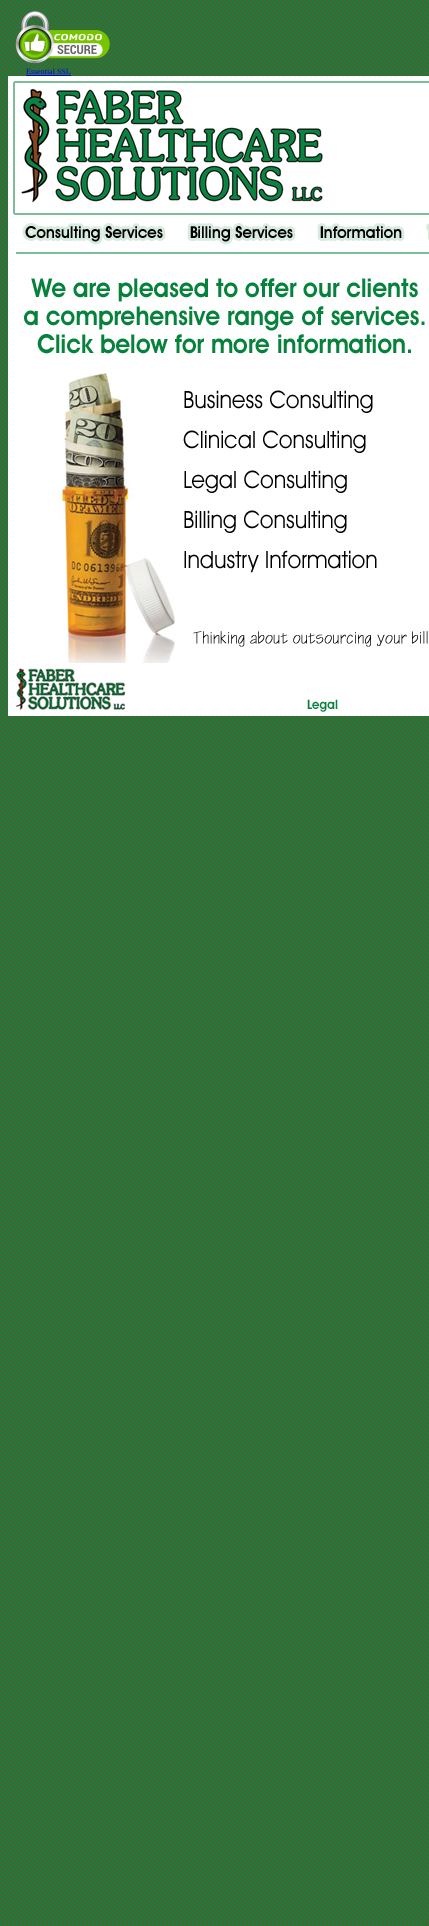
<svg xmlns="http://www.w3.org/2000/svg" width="429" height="1926">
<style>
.a{font:8px Liberation Serif;fill:#00e}
</style>
<rect width="100%" height="100%" fill="#fff"/>
<image href="1.png" x="0" y="0" width="429" height="1926"/>
<image href="2.png" x="15" y="11" width="95" height="53"/>
<path fill="#00e" d="M26 75h45v1H26z"/>
<path fill="#fff" d="M8 76h421v640H8z"/>
<image href="3.png" x="13" y="81" width="416" height="173"/>
<image href="4.png" x="24" y="277" width="404" height="386"/>
<image href="5.png" x="15" y="668" width="323" height="44"/>
<text class="a" x="26" y="74">Essential SSL</text>
</svg>
